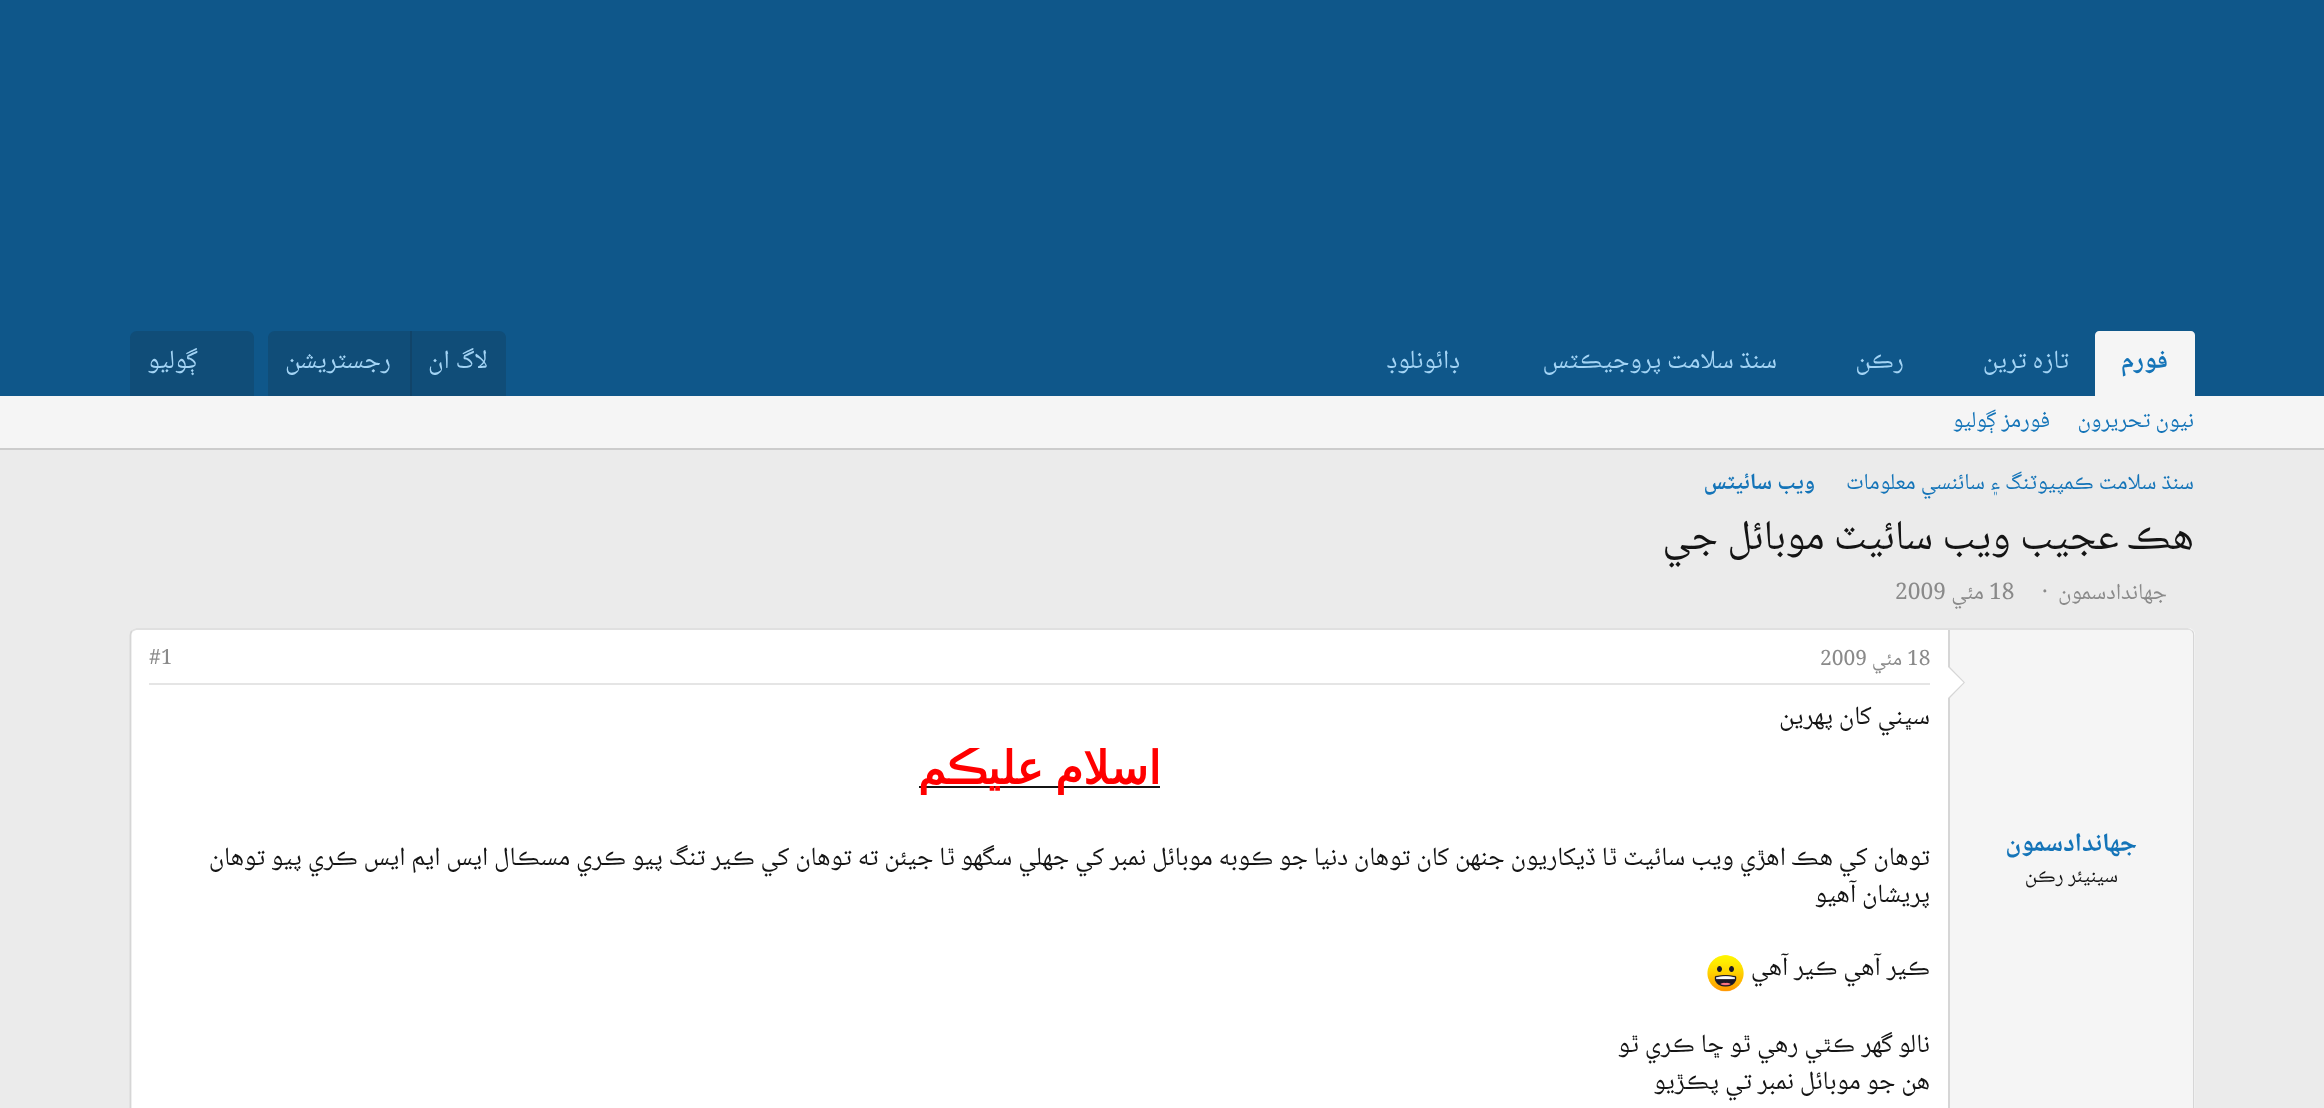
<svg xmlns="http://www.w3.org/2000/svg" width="2324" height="1108">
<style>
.a{font:bold 26.25px Noto Naskh Arabic;direction:rtl;fill:#1474b8}
.b{font:26.25px Noto Naskh Arabic;direction:rtl;fill:#a3d4f5}
.c{font:22.75px Noto Naskh Arabic;direction:rtl;fill:#1474b8}
.d{font:bold 22.75px Noto Naskh Arabic;direction:rtl;fill:#1474b8}
.e{font:42px Noto Naskh Arabic;direction:rtl;fill:#141414}
.f{font:22.75px Noto Naskh Arabic;direction:rtl;fill:#8a8a8a}
.g{font:22.75px Noto Naskh Arabic;fill:#8a8a8a}
.h{font:21px Noto Naskh Arabic;direction:rtl;fill:#141414}
.i{font:21px Noto Naskh Arabic;fill:#8a8a8a}
.j{font:21px Noto Naskh Arabic;direction:rtl;fill:#8a8a8a}
.k{font:26.25px Noto Naskh Arabic;direction:rtl;fill:#141414}
.l{font:bold 45.5px DejaVu Sans;direction:rtl;fill:#f00}
</style>
<rect width="100%" height="100%" fill="#ebebeb"/>
<path fill="#0f578a" d="M0 0h2324v396H0z"/>
<path fill="#f5f5f5" d="M2099 331h92c2 0 4 2 4 4v61h-100v-61c0-2 2-4 4-4z"/>
<path fill="#104d78" d="M275 331h224c4 0 7 3 7 7v58h-238v-58c0-4 3-7 7-7z"/>
<path fill="#114469" d="M410 331h2v65H410z"/>
<path fill="#104d78" d="M137 331h110c4 0 7 3 7 7v58h-124v-58c0-4 3-7 7-7z"/>
<path fill="#f5f5f5" d="M0 396h2324v52H0z"/>
<path fill="#ccc" d="M0 448h2324v2H0z"/>
<rect fill="#fff" x="130" y="628" width="2065" height="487" rx="7"/>
<path fill="none" stroke="#e0e0e0" stroke-width="1.8" d="M132 631c1.5-1 3-2 4.5-2h2051c1.5 0 3 1 4.5 2"/>
<path fill="none" stroke="#d6d6d6" stroke-width="1.8" d="M2192 631c1 1 1.5 2.5 1.5 4v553c0 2-.5 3.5-1.5 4.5"/>
<path fill="none" stroke="#d6d6d6" stroke-width="1.8" d="M132 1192.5c-1-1-1.5-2.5-1.5-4.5v-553c0-1.5 .5-3 1.5-4"/>
<path fill="#f5f5f5" d="M1948 630h240c3 0 5 2 5 5v473c0 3-2 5-5 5h-240z"/>
<path fill="#d6d6d6" d="M1948 630h2v478H1948z"/>
<path fill="#d6d6d6" d="M1948 700v-35l17 17.5z"/>
<path fill="#fff" d="M1948 698v-31l15.5 15.5z"/>
<path fill="#e5e5e5" d="M149 683h1781v2H149z"/>
<path fill="#141414" d="M919 786h241v2H919z"/>
<image href="1.png" x="1707" y="955" width="37" height="37"/>
<text class="a" x="2168" y="368">فورم</text>
<text class="b" x="2069" y="368">تازہ ترين</text>
<text class="b" x="1904" y="368">رڪن</text>
<text class="b" x="1777" y="368">سنڌ سلامت پروجيڪٽس</text>
<text class="b" x="1460" y="368">ڊائونلوڊ</text>
<text class="b" x="488" y="368">لاگ ان</text>
<text class="b" x="391" y="368">رجسٽريشن</text>
<text class="b" x="198" y="368">ڳوليو</text>
<text class="c" x="2194" y="427">نيون تحريرون</text>
<text class="c" x="2050" y="427">فورمز ڳوليو</text>
<text class="c" x="2194" y="489">سنڌ سلامت ڪمپيوٽنگ ۽ سائنسي معلومات</text>
<text class="d" x="1815" y="489">ويب سائيٽس</text>
<text class="e" x="2194" y="549">هڪ عجيب ويب سائيٽ موبائل جي</text>
<text class="f" x="2167" y="599">جهاندادسمون</text>
<text class="g" x="2042" y="599">·</text>
<text class="g" x="1989" y="599">18</text>
<text class="f" x="1984" y="599">مئي</text>
<text class="g" x="1895" y="599">2009</text>
<text class="a" x="2137" y="851">جهاندادسمون</text>
<text class="h" x="2118" y="882">سينيئر رڪن</text>
<text class="i" x="1907" y="665">18</text>
<text class="j" x="1902" y="665">مئي</text>
<text class="i" x="1820" y="665">2009</text>
<text class="i" x="149" y="664">#1</text>
<text class="k" x="1930" y="724">سڀني کان پهرين</text>
<text class="l" x="1161" y="784" word-spacing="-3">اسلام عليڪم</text>
<text class="k" x="1930" y="865">توهان کي</text>
<text class="k" x="1833" y="865">هڪ اهڙي ويب سائيٽ ٿا ڏيکاريون جنهن کان توهان دنيا جو ڪوبه موبائل نمبر کي جهلي سگهو ٿا جيئن ته توهان کي ڪير تنگ پيو ڪري مسڪال ايس ايم ايس ڪري پيو توهان</text>
<text class="k" x="1930" y="902">پريشان آهيو</text>
<text class="k" x="1930" y="975">ڪير آهي ڪير آهي</text>
<text class="k" x="1930" y="1052">نالو</text>
<text class="k" x="1893" y="1052">گهر</text>
<text class="k" x="1855" y="1052">ڪٿي رهي ٿو ڇا ڪري ٿو</text>
<text class="k" x="1930" y="1089">هن جو موبائل نمبر تي پڪڙيو</text>
</svg>
